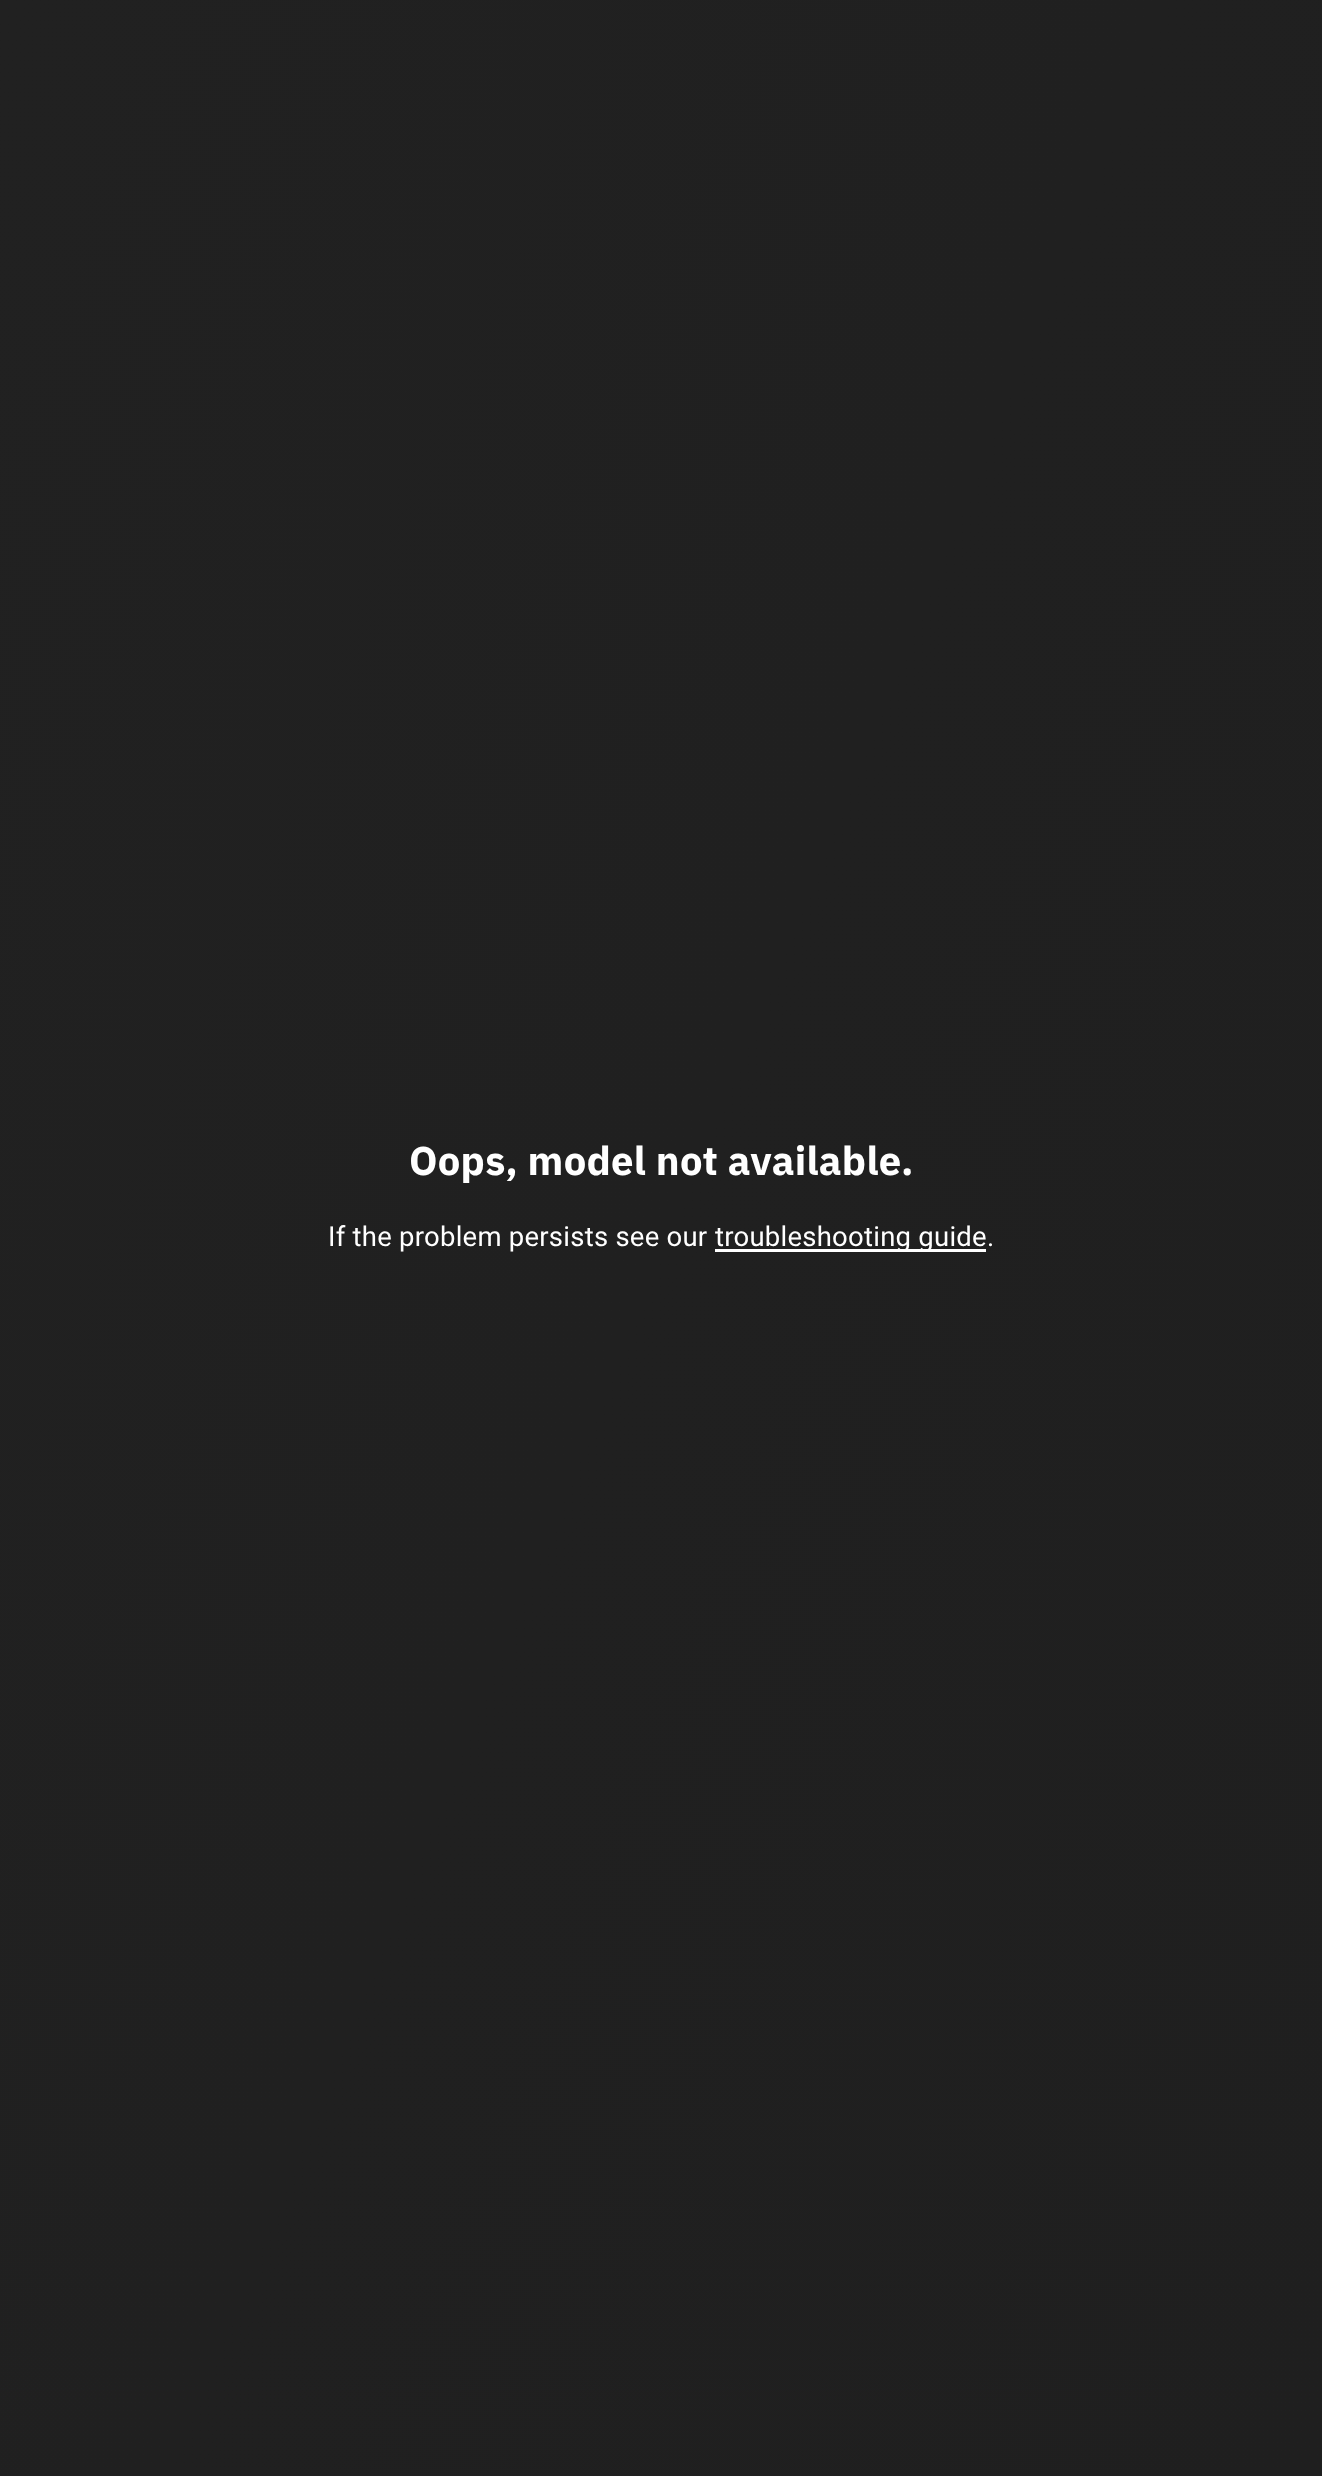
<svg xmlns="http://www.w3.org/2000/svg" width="1322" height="2476">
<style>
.a{font:bold 40px IBM Plex Sans;letter-spacing:0.25px;fill:#fff}
.b{font:27.5px Roboto;letter-spacing:0.25px;fill:#fff}
</style>
<defs>
<linearGradient id="g1" gradientUnits="userSpaceOnUse" x1="-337" y1="835" x2="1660" y2="1642"><stop offset="0" stop-color="#212121"/><stop offset="1" stop-color="#1f1f1f"/></linearGradient>
</defs>
<rect width="100%" height="100%" fill="#fff"/>
<path fill="url(#g1)" d="M0 0h1322v2476H0z"/>
<path fill="#fff" d="M715 1249h271v3H715z"/>
<text class="a" x="409" y="1175">Oops, model not available.</text>
<text class="b" x="328" y="1246">If the problem persists see our</text>
<text class="b" x="715" y="1246">troubleshooting guide.</text>
</svg>
